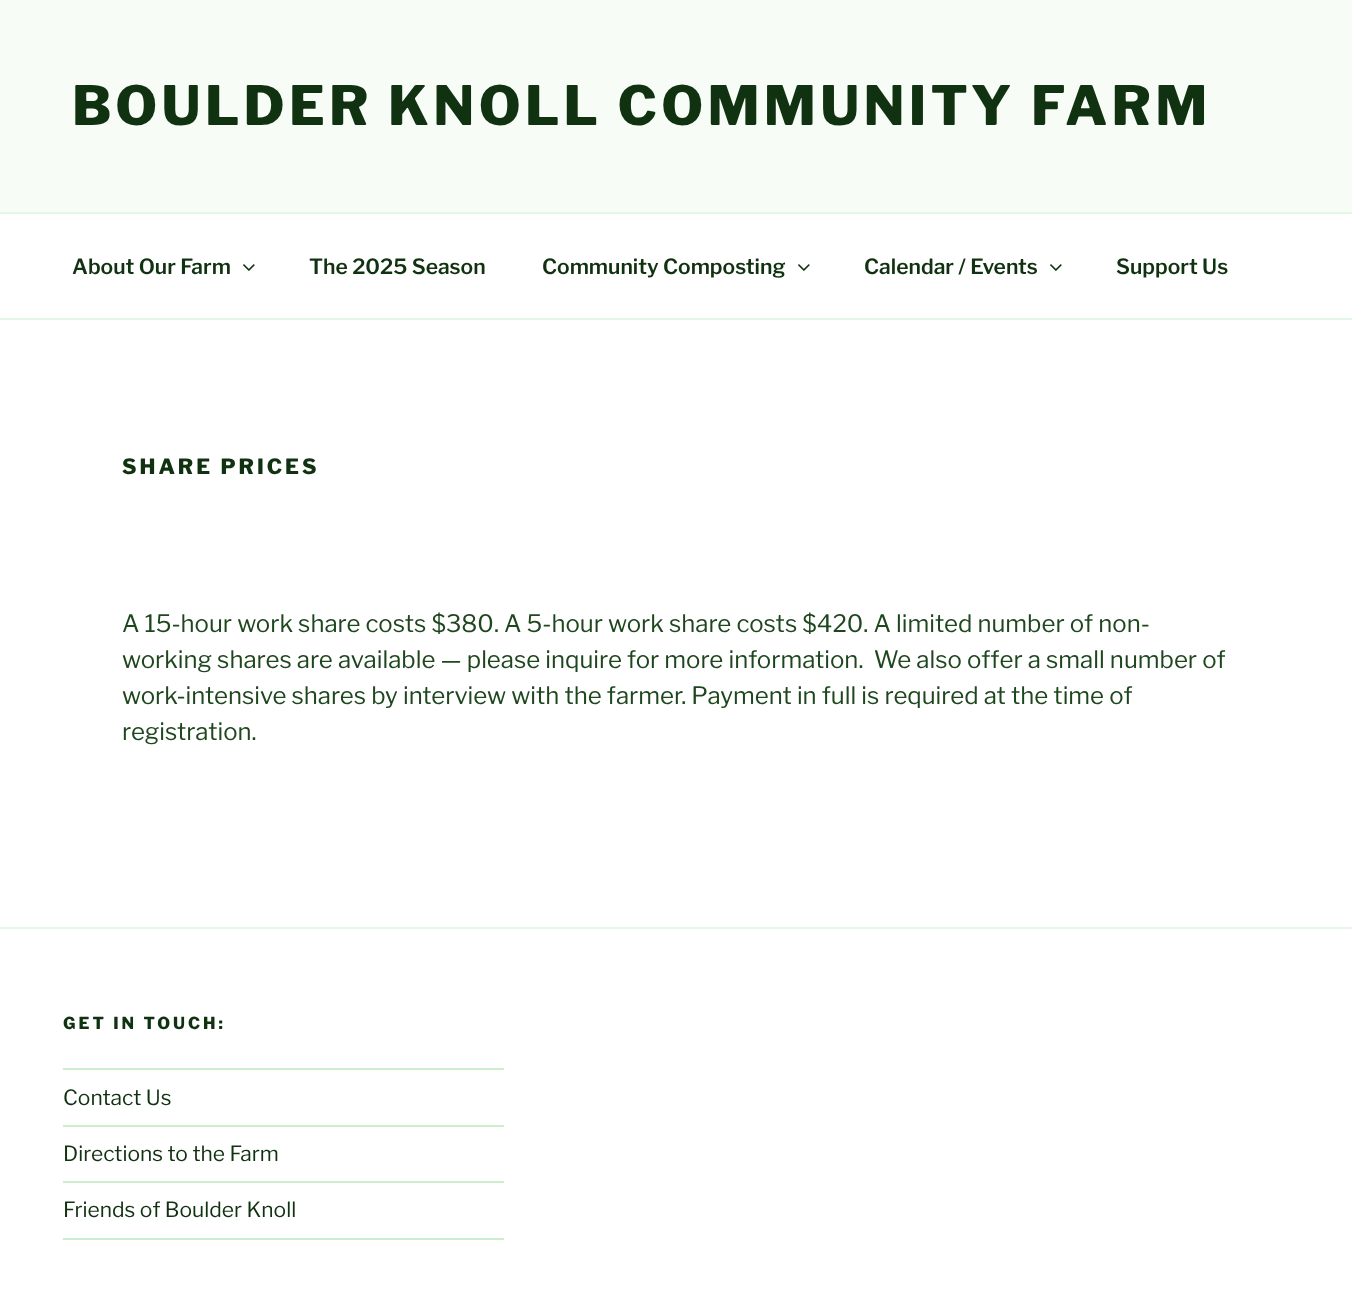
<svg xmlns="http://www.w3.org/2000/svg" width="1352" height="1316">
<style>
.a{font:800 54px Libre Franklin;letter-spacing:4.3px;fill:#113211}
.b{font:600 21px Libre Franklin;fill:#113211}
.c{font:800 21px Libre Franklin;letter-spacing:3px;fill:#113211}
.d{font:24px Libre Franklin;fill:#1f471f}
.e{font:800 16.5px Libre Franklin;letter-spacing:3px;fill:#113211}
.f{font:21px Libre Franklin;fill:#113211}
</style>
<rect width="100%" height="100%" fill="#fff"/>
<path fill="#f7fcf7" d="M0 0h1352v212H0z"/>
<path fill="#e4f6e5" d="M0 212h1352v2H0z"/>
<path fill="#e4f6e5" d="M0 318h1352v2H0z"/>
<image href="1.png" x="243" y="264" width="12" height="7"/>
<image href="1.png" x="798" y="264" width="12" height="7"/>
<image href="1.png" x="1050" y="264" width="12" height="7"/>
<path fill="#e4f6e5" d="M0 927h1352v2H0z"/>
<path fill="#cdeece" d="M63 1068h441v2H63z"/>
<path fill="#cdeece" d="M63 1125h441v2H63z"/>
<path fill="#cdeece" d="M63 1181h441v2H63z"/>
<path fill="#cdeece" d="M63 1238h441v2H63z"/>
<text class="a" x="72" y="125">BOULDER KNOLL COMMUNITY FARM</text>
<text class="b" x="72" y="274">About Our Farm</text>
<text class="b" x="309" y="274">The 2025 Season</text>
<text class="b" x="542" y="274">Community Composting</text>
<text class="b" x="864" y="274">Calendar / Events</text>
<text class="b" x="1116" y="274">Support Us</text>
<text class="c" x="122" y="474">SHARE PRICES</text>
<text class="d" x="122" y="632">A 15-hour work share costs $380. A 5-hour work share costs $420. A limited number of non-</text>
<text class="d" xml:space="preserve" x="122" y="668">working shares are available — please inquire for more information.  We also offer a small number of</text>
<text class="d" x="122" y="704">work-intensive shares by interview with the farmer. Payment in full is required at the time of</text>
<text class="d" x="122" y="740">registration.</text>
<text class="e" x="63" y="1029">GET IN TOUCH:</text>
<text class="f" x="63" y="1105">Contact Us</text>
<text class="f" x="63" y="1161">Directions to the Farm</text>
<text class="f" x="63" y="1217">Friends of Boulder Knoll</text>
</svg>
